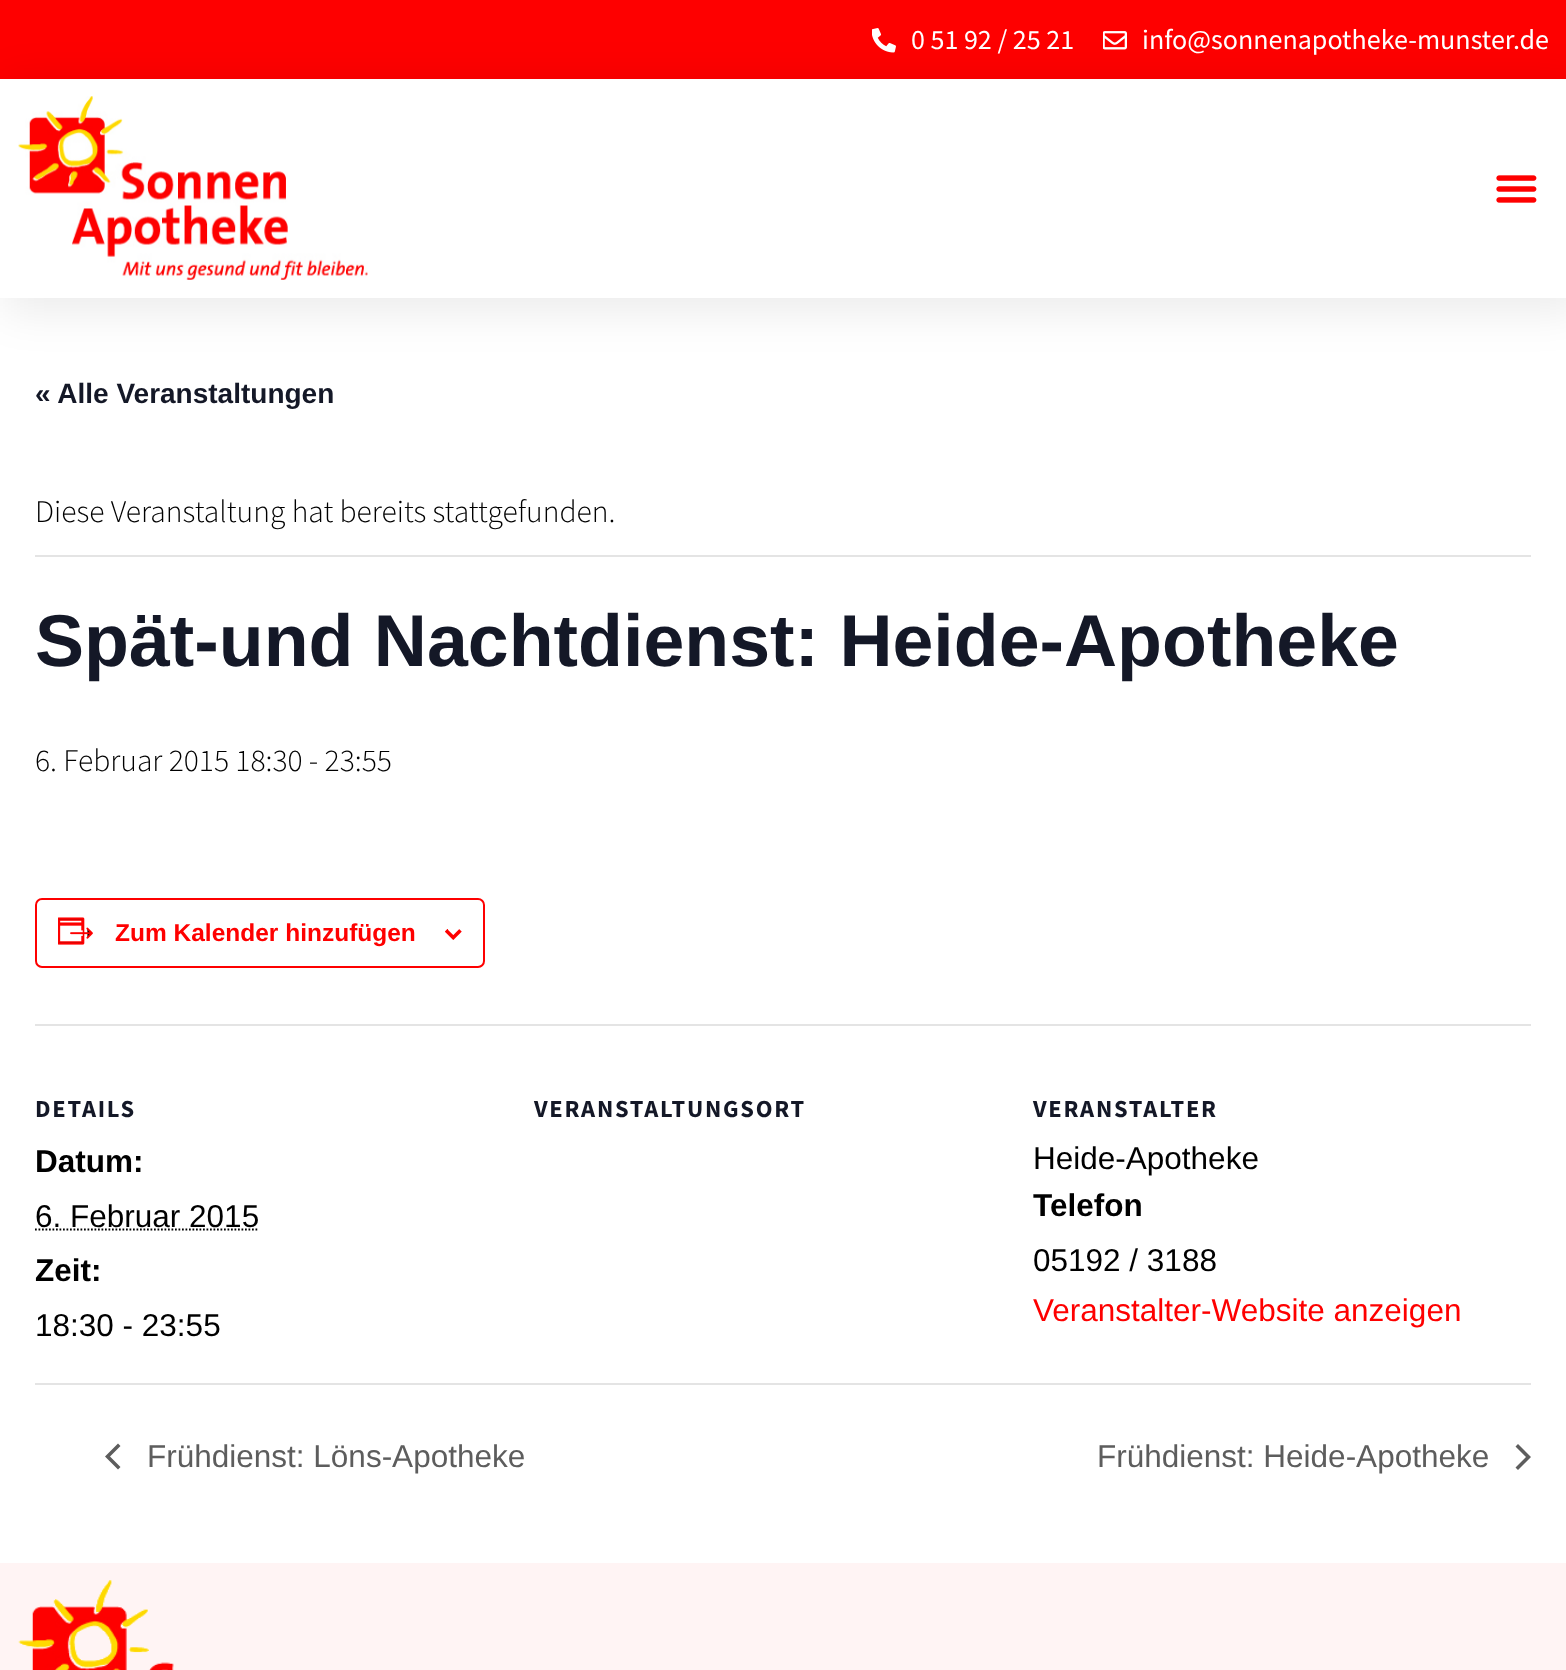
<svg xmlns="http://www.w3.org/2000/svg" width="1566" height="1670">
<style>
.a{font:28px Source Sans Pro;fill:#fff}
.b{font:bold 28px Liberation Sans;fill:#141827}
.c{font:300 31.5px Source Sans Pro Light;fill:#000}
.d{font:bold 73.5px Liberation Sans;fill:#141827}
.e{font:bold 24.5px Liberation Sans;fill:#fe0000}
.f{font:bold 24.5px Source Sans Pro;letter-spacing:1.75px;fill:#141827}
.g{font:bold 31.5px Liberation Sans;fill:#000}
.h{font:31.5px Liberation Sans;fill:#000}
.i{font:31.5px Liberation Sans;fill:#fe0000}
.j{font:31.5px Liberation Sans;fill:#5d5d5d}
</style>
<rect width="100%" height="100%" fill="#fff"/>
<path fill="#fe0000" d="M0 0h1566v79H0z"/>
<image href="3.png" x="872" y="28" width="24" height="25"/>
<image href="4.png" x="1103" y="31" width="24" height="19"/>
<path fill="#00000014" filter="blur(22px)" d="M4 82h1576v230H4z"/>
<path fill="#fff" d="M0 79h1566v219H0z"/>
<image href="1.png" x="18" y="96" width="350" height="184"/>
<image href="2.png" x="1496" y="175" width="41" height="28"/>
<path fill="#e4e4e4" d="M35 555h1496v2H35z"/>
<rect fill="none" stroke="#fe0000" stroke-width="2" x="36" y="899" width="448" height="68" rx="6"/>
<image href="5.png" x="58" y="917" width="35" height="28"/>
<image href="6.png" x="445" y="929" width="17" height="11"/>
<path fill="#e4e4e4" d="M35 1024h1496v2H35z"/>
<path fill="none" stroke="#000" stroke-width="1.8" stroke-dasharray="1.75 1.75" d="M35 1229.5h224"/>
<path fill="#e4e4e4" d="M35 1383h1496v2H35z"/>
<path fill="#5d5d5d" d="M120.5 1467l-2.5 2.5l-13-13l13-13l2.5 2.5l-10.5 10.5z"/>
<path fill="#5d5d5d" d="M1515.5 1446.5l2.5-2.5l13 13l-13 13l-2.5-2.5l10.5-10.5z"/>
<path fill="#fff4f4" d="M0 1563h1566v107H0z"/>
<image href="7.png" x="18" y="1580" width="156" height="90"/>
<text class="a" x="911" y="49">0 51 92 / 25 21</text>
<text class="a" x="1142" y="49">info@sonnenapotheke-munster.de</text>
<text class="b" x="35" y="403">« Alle Veranstaltungen</text>
<text class="c" x="35" y="522">Diese Veranstaltung hat bereits stattgefunden.</text>
<text class="d" x="35" y="666">Spät-und Nachtdienst: Heide-Apotheke</text>
<text class="c" x="35" y="771">6. Februar 2015 18:30 - 23:55</text>
<text class="e" x="115" y="941">Zum Kalender hinzufügen</text>
<text class="f" x="35" y="1117">DETAILS</text>
<text class="g" x="35" y="1172">Datum:</text>
<text class="h" x="35" y="1227">6. Februar 2015</text>
<text class="g" x="35" y="1281">Zeit:</text>
<text class="h" x="35" y="1336">18:30 - 23:55</text>
<text class="f" x="534" y="1117">VERANSTALTUNGSORT</text>
<text class="f" x="1033" y="1117">VERANSTALTER</text>
<text class="h" x="1033" y="1169">Heide-Apotheke</text>
<text class="g" x="1033" y="1216">Telefon</text>
<text class="h" x="1033" y="1271">05192 / 3188</text>
<text class="i" x="1033" y="1321">Veranstalter-Website anzeigen</text>
<text class="j" x="147" y="1467">Frühdienst: Löns-Apotheke</text>
<text class="j" x="1097" y="1467">Frühdienst: Heide-Apotheke</text>
</svg>
